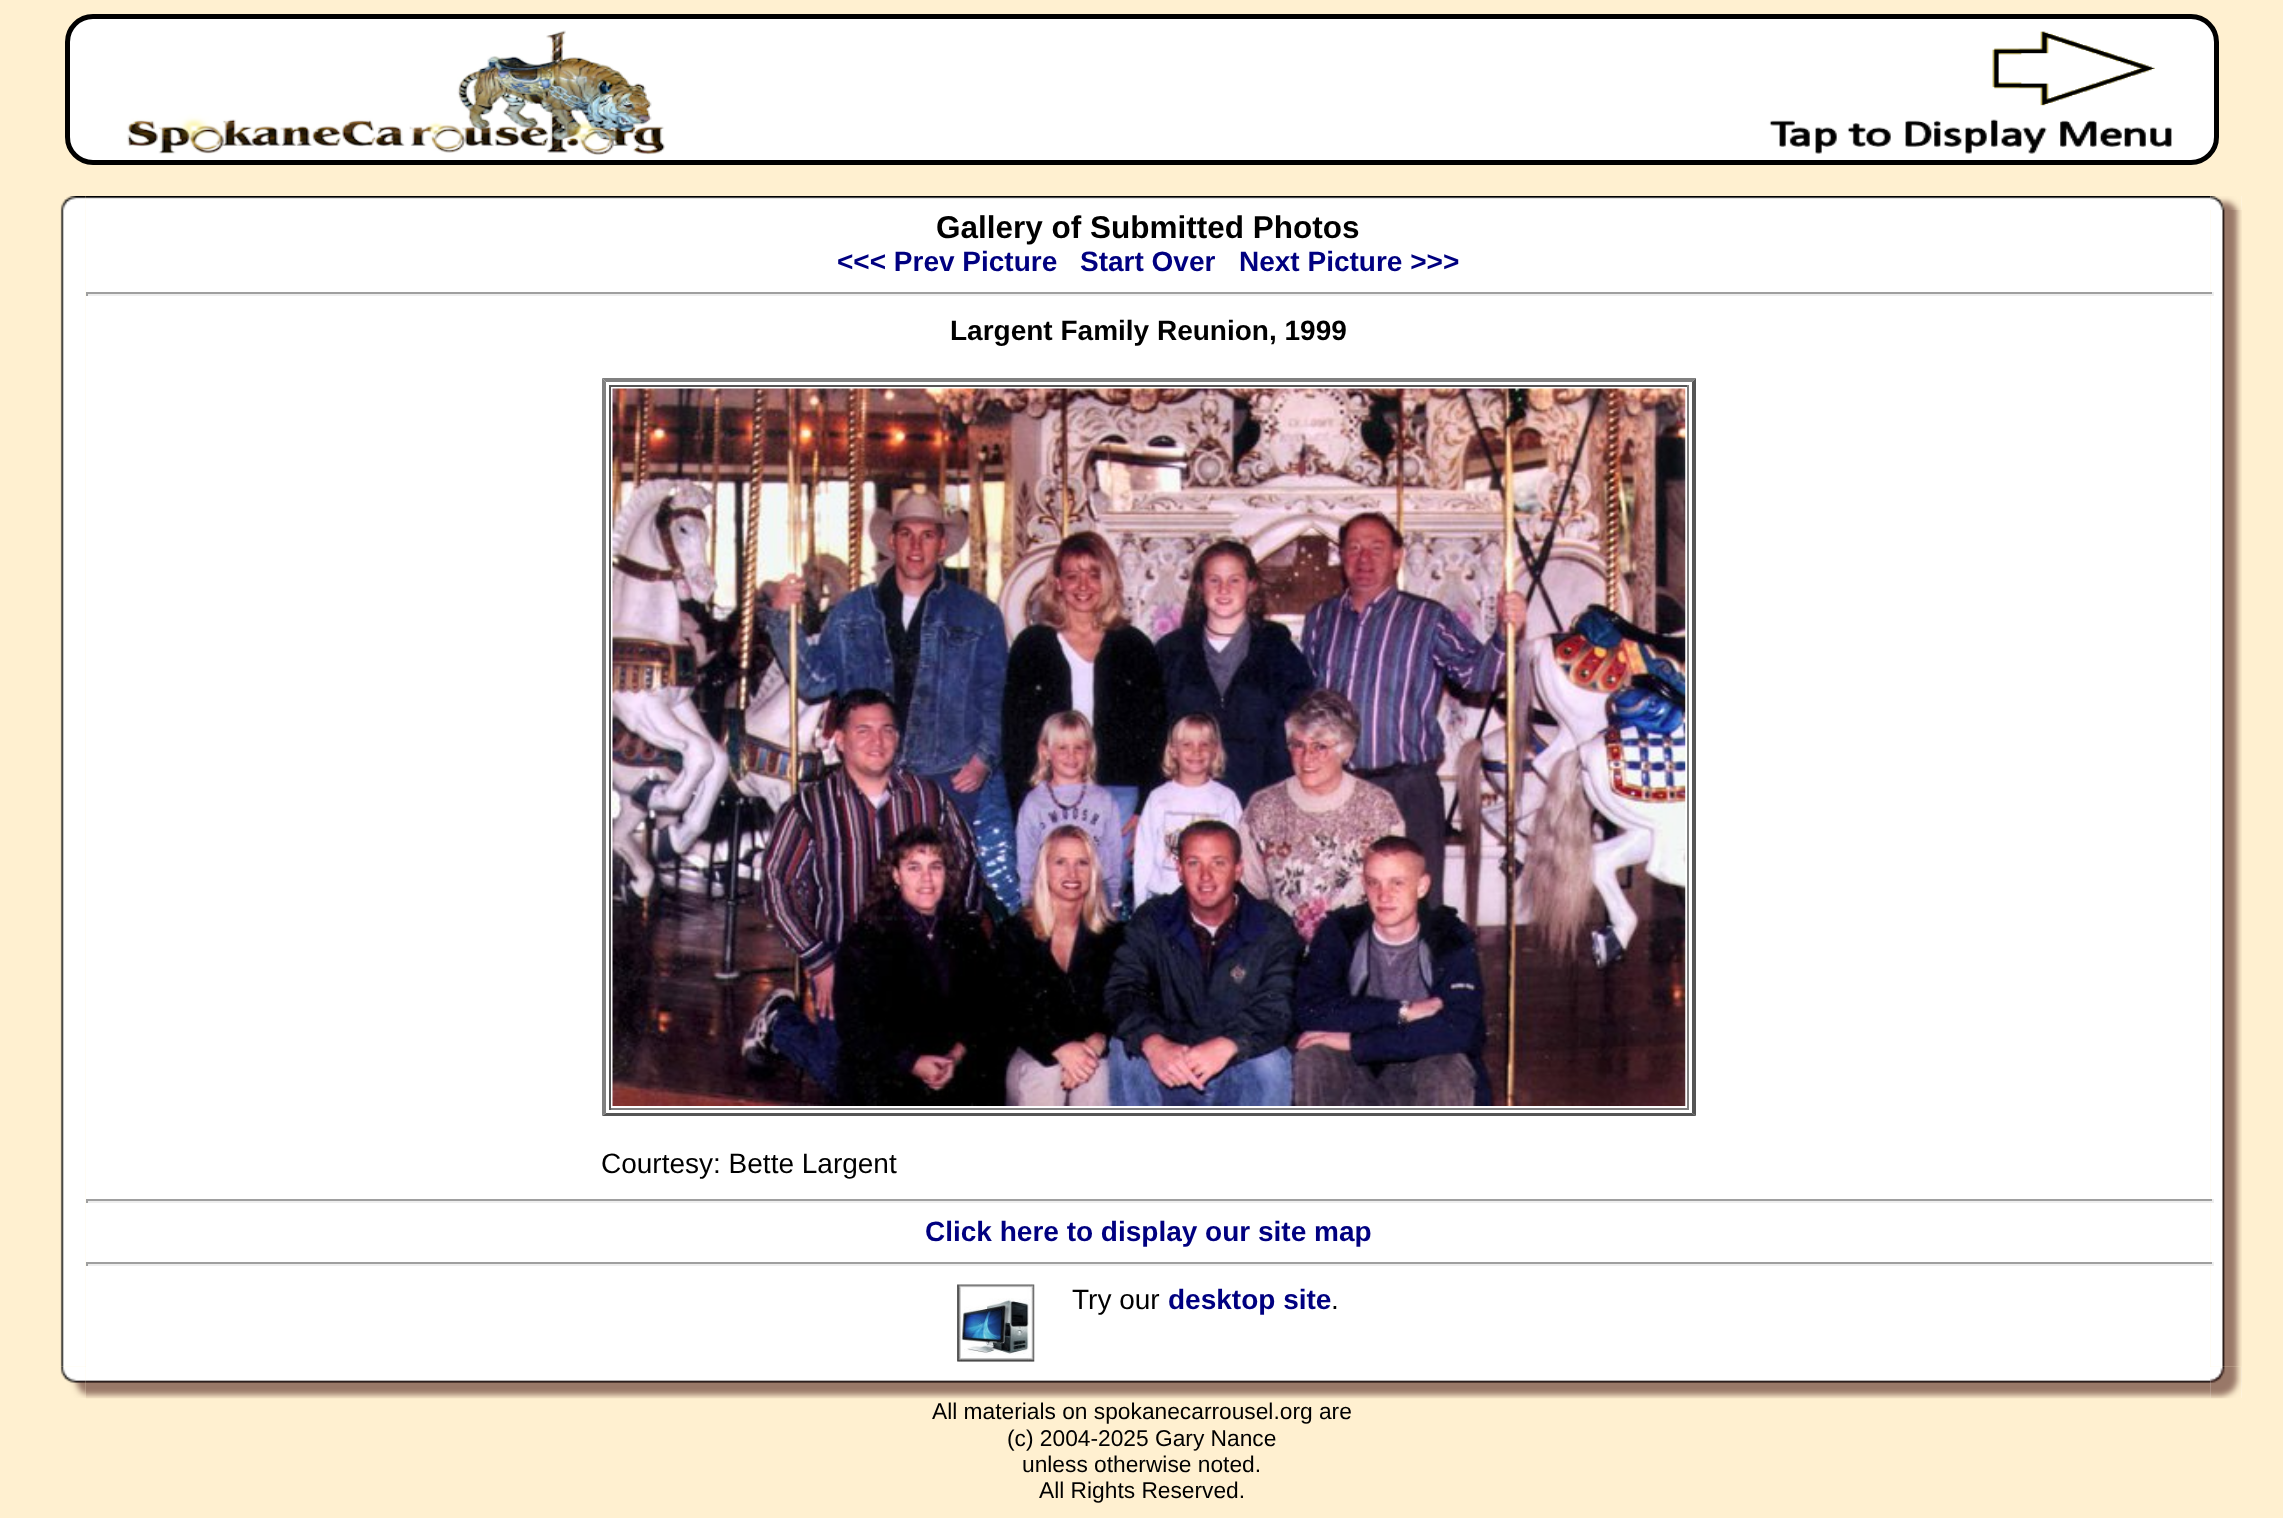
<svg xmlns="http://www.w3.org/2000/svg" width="2283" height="1518">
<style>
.a{font:bold 31.5px Liberation Sans;fill:#000}
.b{font:bold 28px Liberation Sans;fill:#000080}
.c{font:bold 28px Liberation Sans;fill:#000}
.d{font:28px Liberation Sans;fill:#000}
.e{font:22.75px Liberation Sans;fill:#000}
</style>
<rect width="100%" height="100%" fill="#fff0d0"/>
<rect fill="#fff" stroke="#000" stroke-width="5" x="67.5" y="16.5" width="2149" height="146" rx="25.5"/>
<image href="1.png" x="127" y="30" width="2045" height="125"/>
<path fill="#fff" d="M86 196h2156v1202H86z"/>
<image href="2.png" x="60" y="196" width="26" height="14"/>
<image href="3.png" x="85" y="196" width="2126" height="14"/>
<image href="4.png" x="2210" y="196" width="32" height="14"/>
<image href="5.png" x="60" y="210" width="26" height="1157"/>
<path fill="#fff0d0" d="M2210 210h32v1157H2210z"/>
<image href="8.png" x="2210" y="210" width="32" height="1157"/>
<path fill="#9f9f9f" d="M86 292h2128v2H86z"/>
<path fill="#eee" d="M2212 292h2v4H2212z"/>
<path fill="#eee" d="M86 294h2128v2H86z"/>
<path fill="#9f9f9f" d="M86 292h2v4H86z"/>
<path fill="#808080" d="M602 378h1094l-4 4h-1086z"/>
<path fill="#555" d="M1696 378v738l-4-3v-731z"/>
<path fill="#555" d="M1696 1116h-1094l4-3h1086z"/>
<path fill="#808080" d="M602 1116v-738l4 4v731z"/>
<path fill="#555" d="M609 385h1080v2H609z"/>
<path fill="#808080" d="M1687 385h2v725H1687z"/>
<path fill="#808080" d="M609 1108h1080v2H609z"/>
<path fill="#555" d="M609 385h2v725H609z"/>
<image href="6.png" x="612" y="388" width="1074" height="718"/>
<path fill="#9f9f9f" d="M86 1199h2128v2H86z"/>
<path fill="#eee" d="M2212 1199h2v4H2212z"/>
<path fill="#eee" d="M86 1201h2128v2H86z"/>
<path fill="#9f9f9f" d="M86 1199h2v4H86z"/>
<path fill="#9f9f9f" d="M86 1262h2128v2H86z"/>
<path fill="#eee" d="M2212 1262h2v4H2212z"/>
<path fill="#eee" d="M86 1264h2128v2H86z"/>
<path fill="#9f9f9f" d="M86 1262h2v4H86z"/>
<image href="7.png" x="957" y="1284" width="78" height="78"/>
<image href="9.png" x="60" y="1366" width="26" height="32"/>
<image href="10.png" x="85" y="1367" width="2126" height="32"/>
<image href="11.png" x="2210" y="1366" width="32" height="33"/>
<text class="a" x="936" y="238">Gallery of Submitted Photos</text>
<text class="b" x="837" y="271">&lt;&lt;&lt; Prev Picture</text>
<text class="b" x="1080" y="271">Start Over</text>
<text class="b" x="1239" y="271">Next Picture &gt;&gt;&gt;</text>
<text class="c" x="950" y="340">Largent Family Reunion, 1999</text>
<text class="d" x="601" y="1173">Courtesy: Bette Largent</text>
<text class="b" x="925" y="1241">Click here to display our site map</text>
<text class="d" x="1072" y="1309">Try our</text>
<text class="b" x="1168" y="1309">desktop site</text>
<text class="d" x="1331" y="1309">.</text>
<text class="e" x="932" y="1419">All materials on spokanecarrousel.org are</text>
<text class="e" x="1007" y="1446">(c) 2004-2025 Gary Nance</text>
<text class="e" x="1022" y="1472">unless otherwise noted.</text>
<text class="e" x="1039" y="1498">All Rights Reserved.</text>
</svg>
